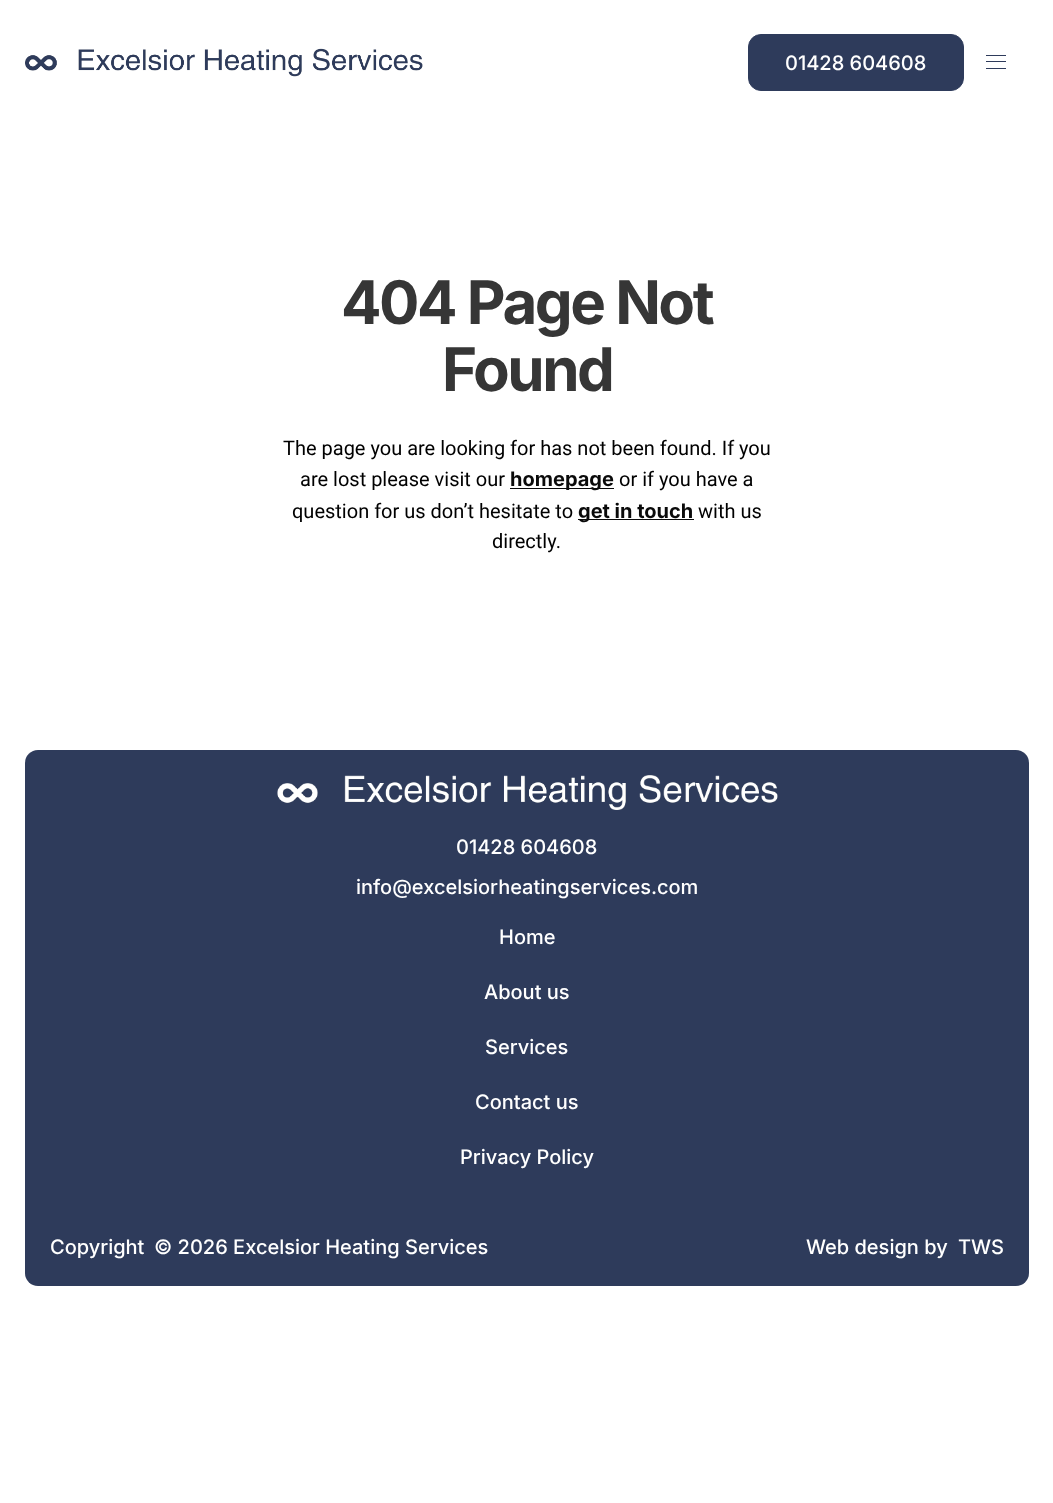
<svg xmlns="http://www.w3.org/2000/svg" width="1053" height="1503">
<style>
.a{font:500 20px Inter;fill:#fff}
.b{font:bold 60px Inter;letter-spacing:-2.5px;fill:#363636}
.c{font:20px Roboto;fill:#000}
.d{font:bold 20px Inter;fill:#0a0a0a}
</style>
<rect width="100%" height="100%" fill="#fff"/>
<image href="1.png" x="25" y="48" width="398" height="29"/>
<rect fill="#2e3b5b" stroke="#2e3b5b" x="748.5" y="34.5" width="215" height="56" rx="12.5"/>
<path fill="#2e3b5b" d="M986 55h20v1H986z"/>
<path fill="#2e3b5b" d="M986 61h20v1H986z"/>
<path fill="#2e3b5b" d="M986 68h20v1H986z"/>
<path fill="#0a0a0a" d="M510 488h104v1H510z"/>
<path fill="#0a0a0a" d="M578 519h116v1H578z"/>
<rect fill="#2e3b5b" x="25" y="750" width="1004" height="536" rx="13"/>
<image href="2.png" x="277" y="775" width="501" height="35"/>
<text class="a" x="785" y="70">01428 604608</text>
<text class="b" x="341" y="324">404 Page Not</text>
<text class="b" x="442" y="391">Found</text>
<text class="c" x="283" y="455">The page you are looking for has not been found. If you</text>
<text class="c" x="300" y="486">are lost please visit our</text>
<text class="d" x="510" y="486">homepage</text>
<text class="c" x="619" y="486">or if you have a</text>
<text class="c" x="292" y="518">question for us don’t hesitate to</text>
<text class="d" x="578" y="518">get in touch</text>
<text class="c" x="698" y="518">with us</text>
<text class="c" x="492" y="548">directly.</text>
<text class="a" x="456" y="854">01428 604608</text>
<text class="a" x="356" y="894">info@excelsiorheatingservices.com</text>
<text class="a" x="499" y="944">Home</text>
<text class="a" x="484" y="999">About us</text>
<text class="a" x="485" y="1054">Services</text>
<text class="a" x="475" y="1109">Contact us</text>
<text class="a" x="460" y="1164">Privacy Policy</text>
<text class="a" x="50" y="1254">Copyright</text>
<text class="a" x="154" y="1254">© 2026 Excelsior Heating Services</text>
<text class="a" x="806" y="1254">Web design by</text>
<text class="a" x="958" y="1254">TWS</text>
</svg>
